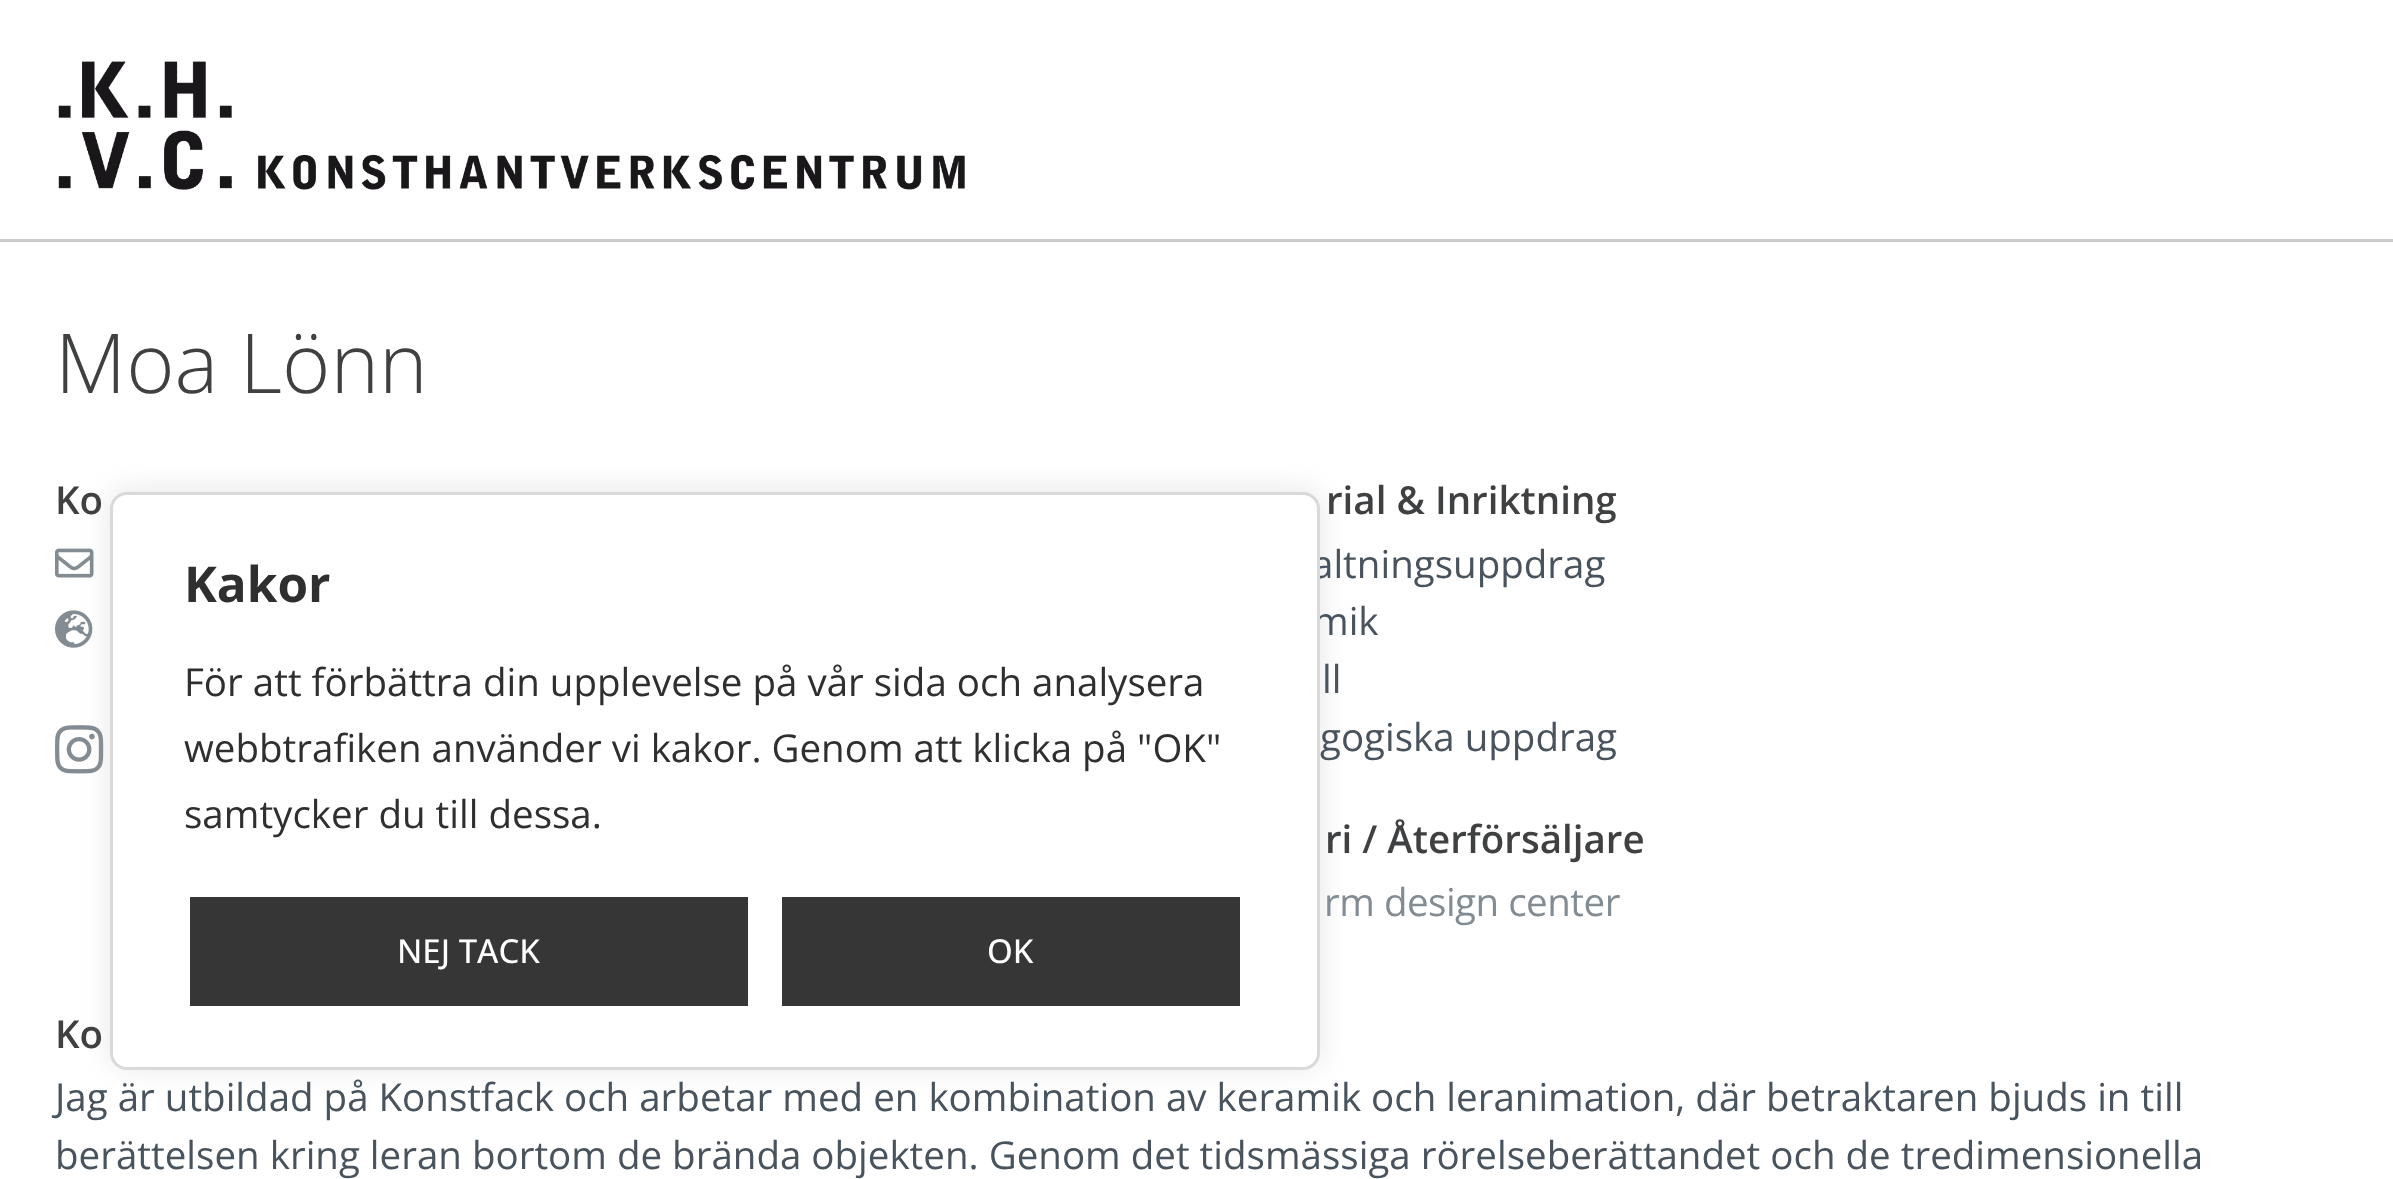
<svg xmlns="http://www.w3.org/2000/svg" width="2393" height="1179">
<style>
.a{font:300 82.5px Open Sans;fill:#3e4042}
.b{font:600 38.5px Open Sans;fill:#3e4042}
.c{font:38.5px Open Sans;fill:#48535d}
.d{font:38.5px Open Sans;letter-spacing:-0.5px;fill:#838b93}
.e{font:bold 49.5px Open Sans;fill:#2f2f2f}
.f{font:38.5px Open Sans;fill:#2f2f2f}
.g{font:500 33px Open Sans;fill:#fff}
</style>
<rect width="100%" height="100%" fill="#fff"/>
<path fill="#ccc" d="M0 239h2393v3H0z"/>
<image href="1.png" x="58" y="61" width="907" height="129"/>
<image href="2.png" x="55" y="548" width="39" height="30"/>
<image href="3.png" x="55" y="610" width="38" height="38"/>
<image href="4.png" x="55" y="725" width="49" height="49"/>
<rect fill="#acabab4d" filter="blur(14px)" x="110" y="490" width="1210" height="577" rx="17"/>
<text class="a" x="55" y="393">Moa Lönn</text>
<text class="b" x="55" y="514">Ko</text>
<text class="b" x="1326" y="514">rial &amp; Inriktning</text>
<text class="c" x="1312" y="578">altningsuppdrag</text>
<text class="c" x="1313" y="635">mik</text>
<text class="c" x="1322" y="693">ll</text>
<text class="c" x="1320" y="751">gogiska uppdrag</text>
<text class="b" x="1325" y="853">ri / Återförsäljare</text>
<text class="d" x="1324" y="916">rm design center</text>
<text class="b" x="55" y="1048">Ko</text>
<text class="c" x="55" y="1111">Jag är utbildad på Konstfack och arbetar med en kombination av keramik och leranimation, där betraktaren bjuds in till</text>
<text class="c" x="55" y="1169">berättelsen kring leran bortom de brända objekten. Genom det tidsmässiga rörelseberättandet och de tredimensionella</text>
<rect fill="#fff" stroke="#d9d9d9" stroke-width="3" x="111.5" y="493.5" width="1207" height="575" rx="15.5"/>
<text class="e" x="184" y="602">Kakor</text>
<text class="f" x="184" y="696">För att förbättra din upplevelse på vår sida och analysera</text>
<text class="f" x="184" y="762">webbtrafiken använder vi kakor. Genom att klicka på "OK"</text>
<text class="f" x="184" y="828">samtycker du till dessa.</text>
<rect fill="#363636" stroke="#fff" stroke-width="6" x="187" y="894" width="564" height="115" rx="3"/>
<text class="g" x="397" y="963">NEJ TACK</text>
<rect fill="#363636" stroke="#fff" stroke-width="6" x="779" y="894" width="464" height="115" rx="3"/>
<text class="g" x="987" y="963">OK</text>
</svg>
